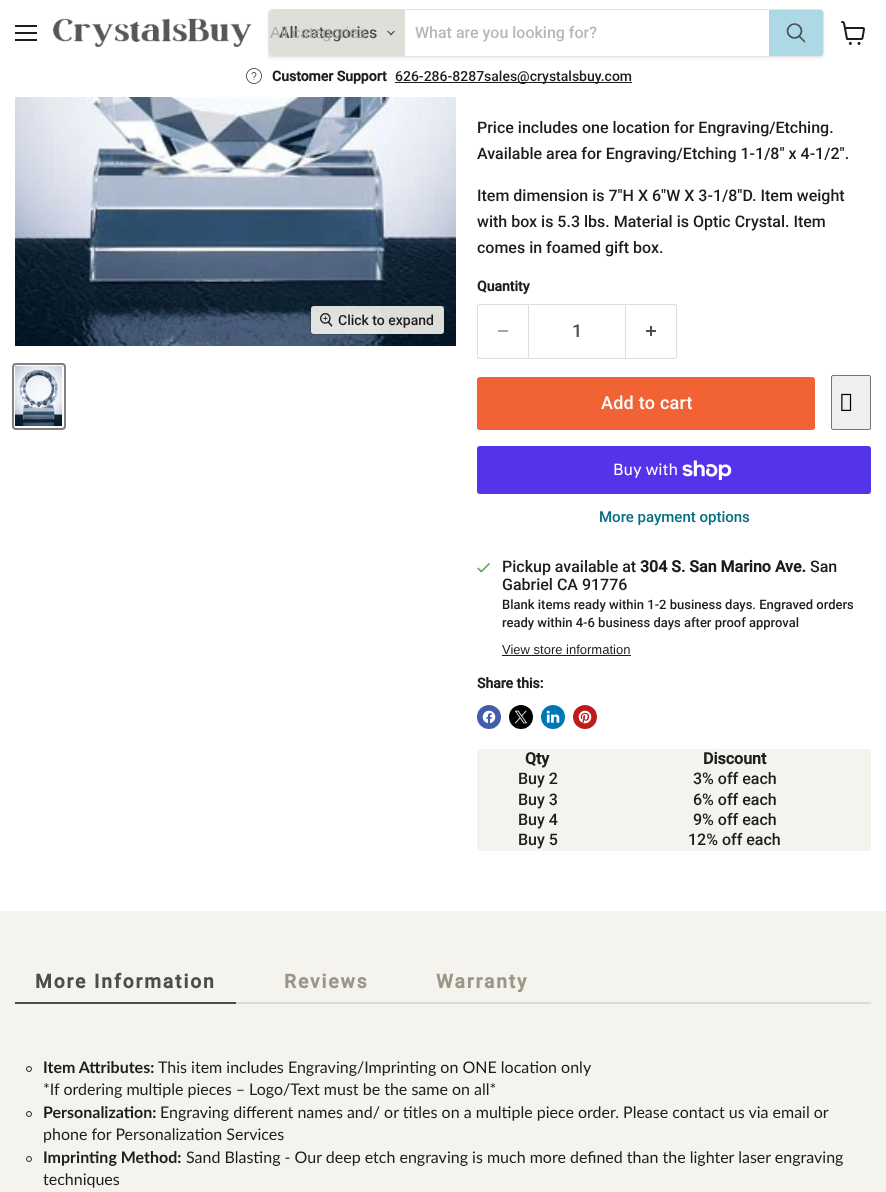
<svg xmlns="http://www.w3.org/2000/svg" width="886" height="1192">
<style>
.a{font:500 16px Roboto;fill:#4d4d4d}
.b{font:16px Liberation Sans;fill:#acaca8}
.c{font:500 16px Roboto;fill:#b8b8b8}
.d{font:bold 14px Roboto;fill:#1d1d1d}
.e{font:500 14px Roboto;fill:#1d1d1d}
.f{font:500 16px Roboto;fill:#1d1d1d}
.g{font:500 18px Roboto;fill:#4d4d4d}
.h{font:500 18px Roboto;letter-spacing:0.25px;fill:#fff}
.i{font:16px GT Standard;fill:#fff}
.j{font:500 15px Roboto;fill:#046e82}
.k{font:bold 16px Roboto;fill:#1d1d1d}
.l{font:500 13px Roboto;fill:#1d1d1d}
.m{font:13px Liberation Sans;fill:#1d1d1d}
.n{font:bold 19.25px Roboto;letter-spacing:1.9px;fill:#4d4d4d}
.o{font:bold 19.25px Roboto;letter-spacing:1.9px;fill:#9b9686}
.p{font:bold 16px Lato;fill:#1d1d1d}
.q{font:16px Lato;fill:#1d1d1d}
</style>
<defs>
<clipPath id="clip1"><path d="M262 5h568v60h-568zm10 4h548c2 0 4 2 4 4v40c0 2-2 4-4 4h-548c-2 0-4-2-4-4v-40c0-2 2-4 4-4z" clip-rule="evenodd"/></clipPath>
</defs>
<rect width="100%" height="100%" fill="#f5f3ed"/>
<path fill="#fff" d="M0 0h886v911H0z"/>
<path fill="#1d1d1d" d="M15 25h22v2H15z"/>
<path fill="#1d1d1d" d="M15 32h22v2H15z"/>
<path fill="#1d1d1d" d="M15 39h22v2H15z"/>
<image href="1.png" x="53" y="18" width="199" height="30"/>
<g clip-path="url(#clip1)">
<rect fill="#7b7a771c" filter="blur(1.5px)" x="268" y="11" width="556" height="48" rx="4"/>
</g>
<rect fill="none" stroke="#7b7a7733" x="268.5" y="9.5" width="555" height="47" rx="3.5"/>
<path fill="#dfded8" d="M272 10h133v46h-133c-1.5 0-3-1.5-3-3v-40c0-1.5 1.5-3 3-3z"/>
<image href="2.png" x="387" y="30" width="8" height="6"/>
<path fill="#add8e6" stroke="#add8e6" d="M769.5 10.5h50.5c1.5 0 2.5 1 2.5 2.5v40c0 1.5-1 2.5-2.5 2.5h-50.5z"/>
<path fill="none" stroke="#4d4d4d" stroke-width="1.7" stroke-linecap="round" d="M804.5 41.5l-5-5"/>
<circle fill="none" stroke="#4d4d4d" stroke-width="1.7" cx="794.5" cy="31" r="7"/>
<image href="3.png" x="246" y="68" width="16" height="16"/>
<path fill="#1d1d1d" d="M395 82h237v1H395z"/>
<image href="4.png" x="841" y="21" width="24" height="24"/>
<image href="5.png" x="15" y="97" width="441" height="249"/>
<rect fill="none" stroke="#00000026" x="310.5" y="305.5" width="134" height="29" rx="3.5"/>
<rect fill="#f5f3ede6" x="311" y="306" width="133" height="28" rx="3"/>
<image href="6.png" x="320" y="313" width="13" height="14"/>
<rect fill="none" stroke="#818181" stroke-width="2" x="13" y="364" width="52" height="65" rx="3"/>
<image href="7.png" x="15" y="366" width="47" height="60"/>
<path fill="#ddd" fill-rule="evenodd" d="M480 304h48v55h-48c-2 0-3-1-3-3v-49c0-2 1-3 3-3zm0 1h48v53h-40c-4 0-10 1-10-2v-50z"/>
<path fill="#a6a6a6" d="M498 330h10v2H498z"/>
<path fill="none" stroke="#ddd" d="M528.5 304.5h97v54H528.5z"/>
<path fill="#ddd" fill-rule="evenodd" d="M626 304h48c2 0 3 1 3 3v49c0 2-1 3-3 3h-48zm0 1h48c1 0 2 1 2 2v49c0 1-1 2-2 2h-48z"/>
<image href="8.png" x="646" y="326" width="10" height="10"/>
<rect fill="#f16334" x="477" y="377" width="338" height="53" rx="3"/>
<rect fill="#efefef" stroke="#767676" x="831.5" y="375.5" width="39" height="54" rx="1.5"/>
<image href="9.png" x="841" y="393" width="11" height="18"/>
<rect fill="#5433eb" x="477" y="446" width="394" height="48" rx="3"/>
<image href="10.png" x="682" y="460" width="50" height="20"/>
<image href="11.png" x="477" y="563" width="13" height="10"/>
<path fill="#1d1d1d" d="M502 655h129v1H502z"/>
<circle fill="#425dab" cx="489" cy="717" r="12"/>
<image href="12.png" x="482" y="710" width="14" height="14"/>
<circle fill="#000" cx="521" cy="717" r="12"/>
<image href="13.png" x="514" y="710" width="14" height="14"/>
<circle fill="#0077b5" cx="553" cy="717" r="12"/>
<image href="14.png" x="546" y="710" width="14" height="13"/>
<circle fill="#bd1c1c" cx="585" cy="717" r="12"/>
<image href="15.png" x="578" y="710" width="14" height="14"/>
<path fill="#f5f3ed" d="M477 749h394v20H477z"/>
<path fill="#f5f3ed" d="M477 769h394v21H477z"/>
<path fill="#f5f3ed" d="M477 790h394v20H477z"/>
<path fill="#f5f3ed" d="M477 810h394v20H477z"/>
<path fill="#f5f3ed" d="M477 830h394v21H477z"/>
<path fill="#dcdad5" d="M236 1002h635v2H236z"/>
<path fill="#4d4d4d" d="M15 1002h221v2H15z"/>
<circle fill="none" stroke="#222" cx="29" cy="1069" r="2.5"/>
<circle fill="none" stroke="#222" cx="29" cy="1114" r="2.5"/>
<circle fill="none" stroke="#222" cx="29" cy="1159" r="2.5"/>
<text class="a" x="279" y="38">All categories</text>
<text class="b" x="270" y="38">All categories</text>
<text class="c" x="415" y="38">What are you looking for?</text>
<text class="d" x="272" y="81">Customer Support</text>
<text class="e" x="395" y="81">626-286-8287sales@crystalsbuy.com</text>
<text class="e" x="338" y="325">Click to expand</text>
<text class="f" x="477" y="133">Price includes one location for Engraving/Etching.</text>
<text class="f" x="477" y="159">Available area for Engraving/Etching 1-1/8" x 4-1/2".</text>
<text class="f" x="477" y="201">Item dimension is 7"H X 6"W X 3-1/8"D. Item weight</text>
<text class="f" x="477" y="227">with box is 5.3 lbs. Material is Optic Crystal. Item</text>
<text class="f" x="477" y="253">comes in foamed gift box.</text>
<text class="d" x="477" y="291">Quantity</text>
<text class="g" x="572" y="337">1</text>
<text class="h" x="601" y="409">Add to cart</text>
<text class="i" x="613" y="475">Buy with</text>
<text class="j" x="599" y="522">More payment options</text>
<text class="f" x="502" y="572">Pickup available at</text>
<text class="k" x="640" y="572">304 S. San Marino Ave.</text>
<text class="f" x="810" y="572">San</text>
<text class="f" x="502" y="590">Gabriel CA 91776</text>
<text class="l" x="502" y="609">Blank items ready within 1-2 business days. Engraved orders</text>
<text class="l" x="502" y="627">ready within 4-6 business days after proof approval</text>
<text class="m" x="502" y="654">View store information</text>
<text class="d" x="477" y="688">Share this:</text>
<text class="k" x="525" y="764">Qty</text>
<text class="k" x="703" y="764">Discount</text>
<text class="f" x="518" y="784">Buy 2</text>
<text class="f" x="693" y="784">3% off each</text>
<text class="f" x="518" y="805">Buy 3</text>
<text class="f" x="693" y="805">6% off each</text>
<text class="f" x="518" y="825">Buy 4</text>
<text class="f" x="693" y="825">9% off each</text>
<text class="f" x="518" y="845">Buy 5</text>
<text class="f" x="688" y="845">12% off each</text>
<text class="n" x="35" y="988">More Information</text>
<text class="o" x="284" y="988">Reviews</text>
<text class="o" x="436" y="988">Warranty</text>
<text class="p" x="43" y="1073">Item Attributes:</text>
<text class="q" x="158" y="1073">This item includes Engraving/Imprinting on ONE location only</text>
<text class="q" x="43" y="1095">*If ordering multiple pieces – Logo/Text must be the same on all*</text>
<text class="p" x="43" y="1118">Personalization:</text>
<text class="q" x="160" y="1118">Engraving different names and/ or titles on a multiple piece order. Please contact us via email or</text>
<text class="q" x="43" y="1140">phone for Personalization Services</text>
<text class="p" x="43" y="1163">Imprinting Method:</text>
<text class="q" x="186" y="1163">Sand Blasting - Our deep etch engraving is much more defined than the lighter laser engraving</text>
<text class="q" x="43" y="1185">techniques</text>
</svg>
